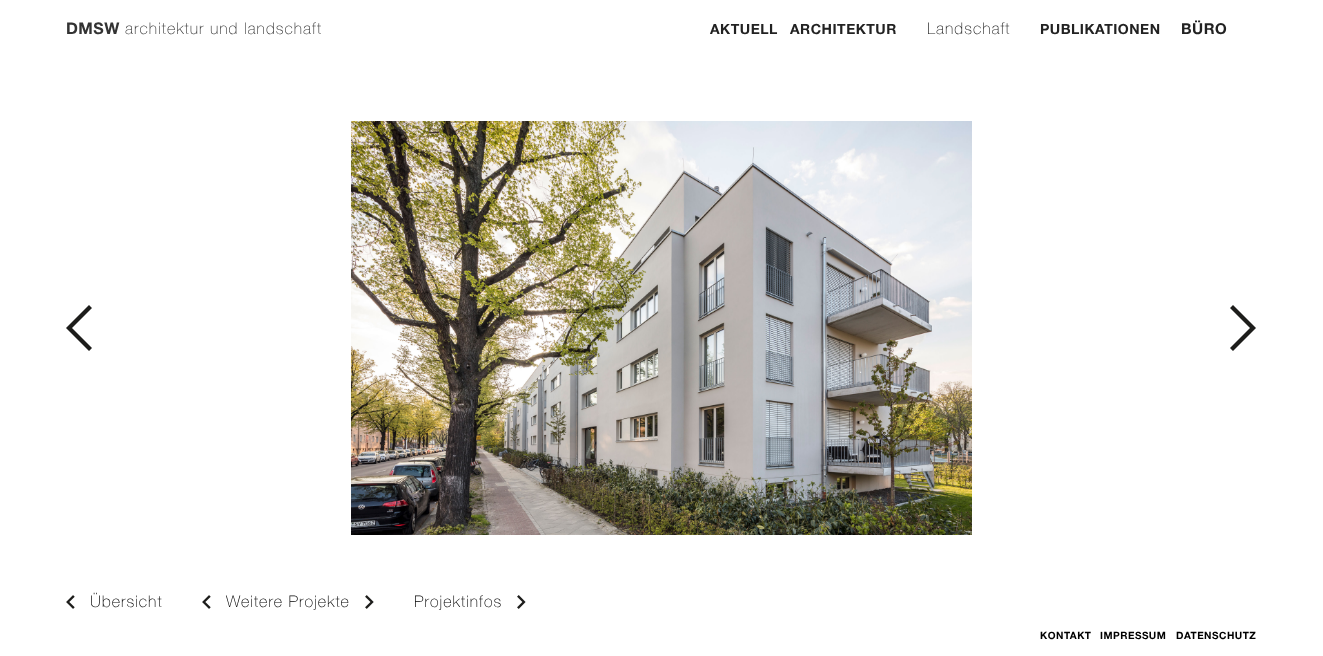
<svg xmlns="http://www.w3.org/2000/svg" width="1323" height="656">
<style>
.a{font:bold 16px Helvetica Neue;letter-spacing:0.5px;fill:#333}
.b{font:200 16px Helvetica Neue;letter-spacing:1px;fill:#333}
.c{font:bold 14px Helvetica Neue;letter-spacing:0.5px;fill:#222}
.d{font:200 16px Helvetica Neue;letter-spacing:1px;fill:#222}
.e{font:bold 15px Helvetica Neue;letter-spacing:0.5px;fill:#222}
.f{font:200 16px Helvetica Neue;letter-spacing:1px;fill:#000}
.g{font:bold 10px Helvetica Neue;letter-spacing:0.5px;fill:#000}
</style>
<rect width="100%" height="100%" fill="#fff"/>
<path fill="#1d1d1b" d="M66 328l23 23l3-3l-20-20l20-20l-3-3z"/>
<image href="1.png" x="351" y="121" width="621" height="414"/>
<path fill="#1d1d1b" d="M1256 328l-23-23l-3 3l20 20l-20 20l3 3z"/>
<image href="2.png" x="66" y="595" width="9" height="14"/>
<image href="2.png" x="202" y="595" width="9" height="14"/>
<image href="3.png" x="365" y="595" width="9" height="14"/>
<image href="4.png" x="517" y="595" width="9" height="14"/>
<text class="a" x="66" y="34">DMSW</text>
<text class="b" x="125" y="34">architektur und landschaft</text>
<text class="c" x="710" y="34">AKTUELL</text>
<text class="c" x="790" y="34">ARCHITEKTUR</text>
<text class="d" x="927" y="34">Landschaft</text>
<text class="c" x="1040" y="34">PUBLIKATIONEN</text>
<text class="e" x="1181" y="34">BÜRO</text>
<text class="f" x="90" y="607">Übersicht</text>
<text class="f" x="226" y="607">Weitere Projekte</text>
<text class="f" x="414" y="607">Projektinfos</text>
<text class="g" x="1040" y="639">KONTAKT</text>
<text class="g" x="1100" y="639">IMPRESSUM</text>
<text class="g" x="1176" y="639">DATENSCHUTZ</text>
</svg>
